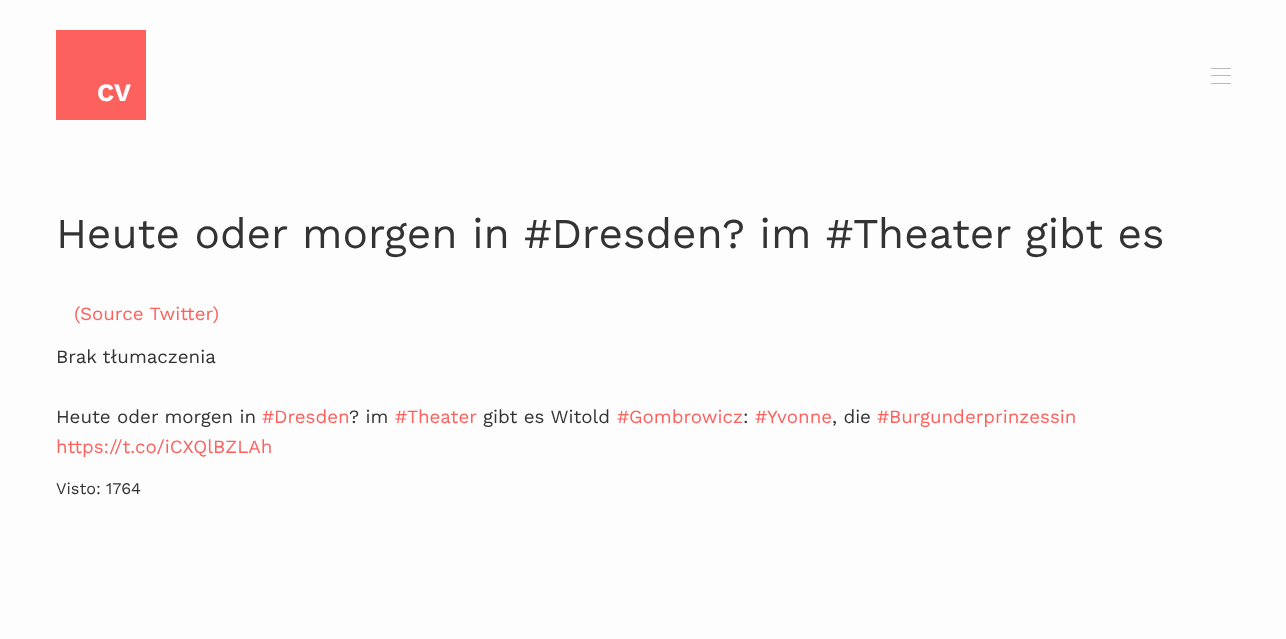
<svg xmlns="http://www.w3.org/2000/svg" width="1286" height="639">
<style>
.a{font:bold 25px Work Sans;fill:#fff}
.b{font:42.5px Work Sans;fill:#333}
.c{font:18.75px Work Sans;fill:#fc615d}
.d{font:18.75px Work Sans;fill:#333}
.e{font:16.25px Work Sans;fill:#333}
</style>
<rect width="100%" height="100%" fill="#fdfdfd"/>
<path fill="#bbb" d="M1211 75h20v1H1211z"/>
<path fill="#bbb" d="M1211 68h20v1H1211z"/>
<path fill="#bbb" d="M1211 83h20v1H1211z"/>
<path fill="#fc615d" d="M56 30h90v90H56z"/>
<text class="a" x="97" y="101">CV</text>
<text class="b" x="56" y="248">Heute oder morgen in #Dresden? im #Theater gibt es</text>
<text class="c" x="74" y="320">(Source Twitter)</text>
<text class="d" x="56" y="363">Brak tłumaczenia</text>
<text class="d" x="56" y="423">Heute oder morgen in</text>
<text class="c" x="262" y="423">#Dresden</text>
<text class="d" x="349" y="423">? im</text>
<text class="c" x="395" y="423">#Theater</text>
<text class="d" x="483" y="423">gibt es Witold</text>
<text class="c" x="617" y="423">#Gombrowicz</text>
<text class="d" x="743" y="423">:</text>
<text class="c" x="755" y="423">#Yvonne</text>
<text class="d" x="832" y="423">, die</text>
<text class="c" x="877" y="423">#Burgunderprinzessin</text>
<text class="c" x="56" y="453">https://t.co/iCXQlBZLAh</text>
<text class="e" x="56" y="494">Visto: 1764</text>
</svg>
